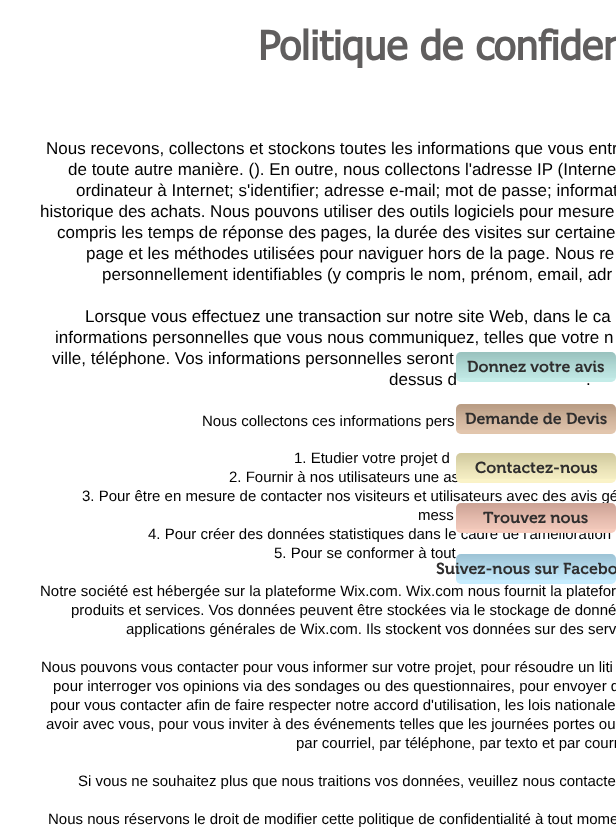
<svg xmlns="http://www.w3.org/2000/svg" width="616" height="838">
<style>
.a{font:bold 40px tahoma;fill:#605e5e}
.b{font:17px Liberation Sans;fill:#000}
.c{font:15px Liberation Sans;fill:#000}
.d{font:600 16px 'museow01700';fill:#2f2e2e}
</style>
<rect width="100%" height="100%" fill="#fff"/>
<rect fill="#b6e8e3" x="456" y="352" width="160" height="30" rx="5"/>
<image href="1.png" x="456" y="352" width="160" height="26"/>
<image href="2.png" x="456" y="353" width="160" height="29"/>
<rect fill="#dbb89a" x="456" y="404" width="160" height="30" rx="5"/>
<image href="3.png" x="456" y="404" width="160" height="26"/>
<image href="4.png" x="456" y="404" width="160" height="30"/>
<rect fill="#bae9ff" x="456" y="554" width="160" height="30" rx="5"/>
<image href="9.png" x="456" y="554" width="160" height="26"/>
<image href="10.png" x="456" y="555" width="160" height="29"/>
<text class="a" x="258" y="60">Politique de confiden</text>
<text class="b" x="46" y="154">Nous recevons, collectons et stockons toutes les informations que vous entr</text>
<text class="b" x="68" y="175">de toute autre manière. (). En outre, nous collectons l'adresse IP (Interne</text>
<text class="b" x="76" y="196">ordinateur à Internet; s'identifier; adresse e-mail; mot de passe; informat</text>
<text class="b" x="40" y="217">historique des achats. Nous pouvons utiliser des outils logiciels pour mesure</text>
<text class="b" x="57" y="238">compris les temps de réponse des pages, la durée des visites sur certaine</text>
<text class="b" x="86" y="259">page et les méthodes utilisées pour naviguer hors de la page. Nous re</text>
<text class="b" x="102" y="280">personnellement identifiables (y compris le nom, prénom, email, adr</text>
<text class="b" x="85" y="322">Lorsque vous effectuez une transaction sur notre site Web, dans le ca</text>
<text class="b" x="55" y="343">informations personnelles que vous nous communiquez, telles que votre n</text>
<text class="b" x="52" y="364">ville, téléphone. Vos informations personnelles seront</text>
<text class="b" x="389" y="385">dessus d</text>
<text class="b" x="586" y="385">.</text>
<text class="c" x="202" y="426">Nous collectons ces informations pers</text>
<text class="c" x="294" y="463">1. Etudier votre projet d</text>
<text class="c" x="229" y="482">2. Fournir à nos utilisateurs une as</text>
<text class="c" x="82" y="501">3. Pour être en mesure de contacter nos visiteurs et utilisateurs avec des avis gé</text>
<text class="c" x="418" y="520">mess</text>
<text class="c" x="148" y="539">4. Pour créer des données statistiques dans le cadre de l'amélioration</text>
<text class="c" x="274" y="558">5. Pour se conformer à tout</text>
<text class="c" x="40" y="596">Notre société est hébergée sur la plateforme Wix.com. Wix.com nous fournit la platefor</text>
<text class="c" x="71" y="615">produits et services. Vos données peuvent être stockées via le stockage de donné</text>
<text class="c" x="126" y="634">applications générales de Wix.com. Ils stockent vos données sur des serv</text>
<text class="c" x="41" y="672">Nous pouvons vous contacter pour vous informer sur votre projet, pour résoudre un liti</text>
<text class="c" x="53" y="691">pour interroger vos opinions via des sondages ou des questionnaires, pour envoyer d</text>
<text class="c" x="50" y="710">pour vous contacter afin de faire respecter notre accord d'utilisation, les lois nationale</text>
<text class="c" x="46" y="729">avoir avec vous, pour vous inviter à des événements telles que les journées portes ou</text>
<text class="c" x="296" y="748">par courriel, par téléphone, par texto et par courr</text>
<text class="c" x="78" y="786">Si vous ne souhaitez plus que nous traitions vos données, veuillez nous contacte</text>
<text class="c" x="48" y="824">Nous nous réservons le droit de modifier cette politique de confidentialité à tout mome</text>
<text class="d" x="467" y="372">Donnez votre avis</text>
<text class="d" x="465" y="424">Demande de Devis</text>
<rect fill="#f9f0bb" x="456" y="453" width="160" height="30" rx="5"/>
<image href="5.png" x="456" y="453" width="160" height="26"/>
<image href="6.png" x="456" y="454" width="160" height="29"/>
<text class="d" x="475" y="473">Contactez-nous</text>
<rect fill="#f4c0af" x="456" y="503" width="160" height="30" rx="5"/>
<image href="7.png" x="456" y="503" width="160" height="26"/>
<image href="8.png" x="456" y="503" width="160" height="30"/>
<text class="d" x="483" y="523">Trouvez nous</text>
<text class="d" x="436" y="574">Suivez-nous sur Facebo</text>
</svg>
